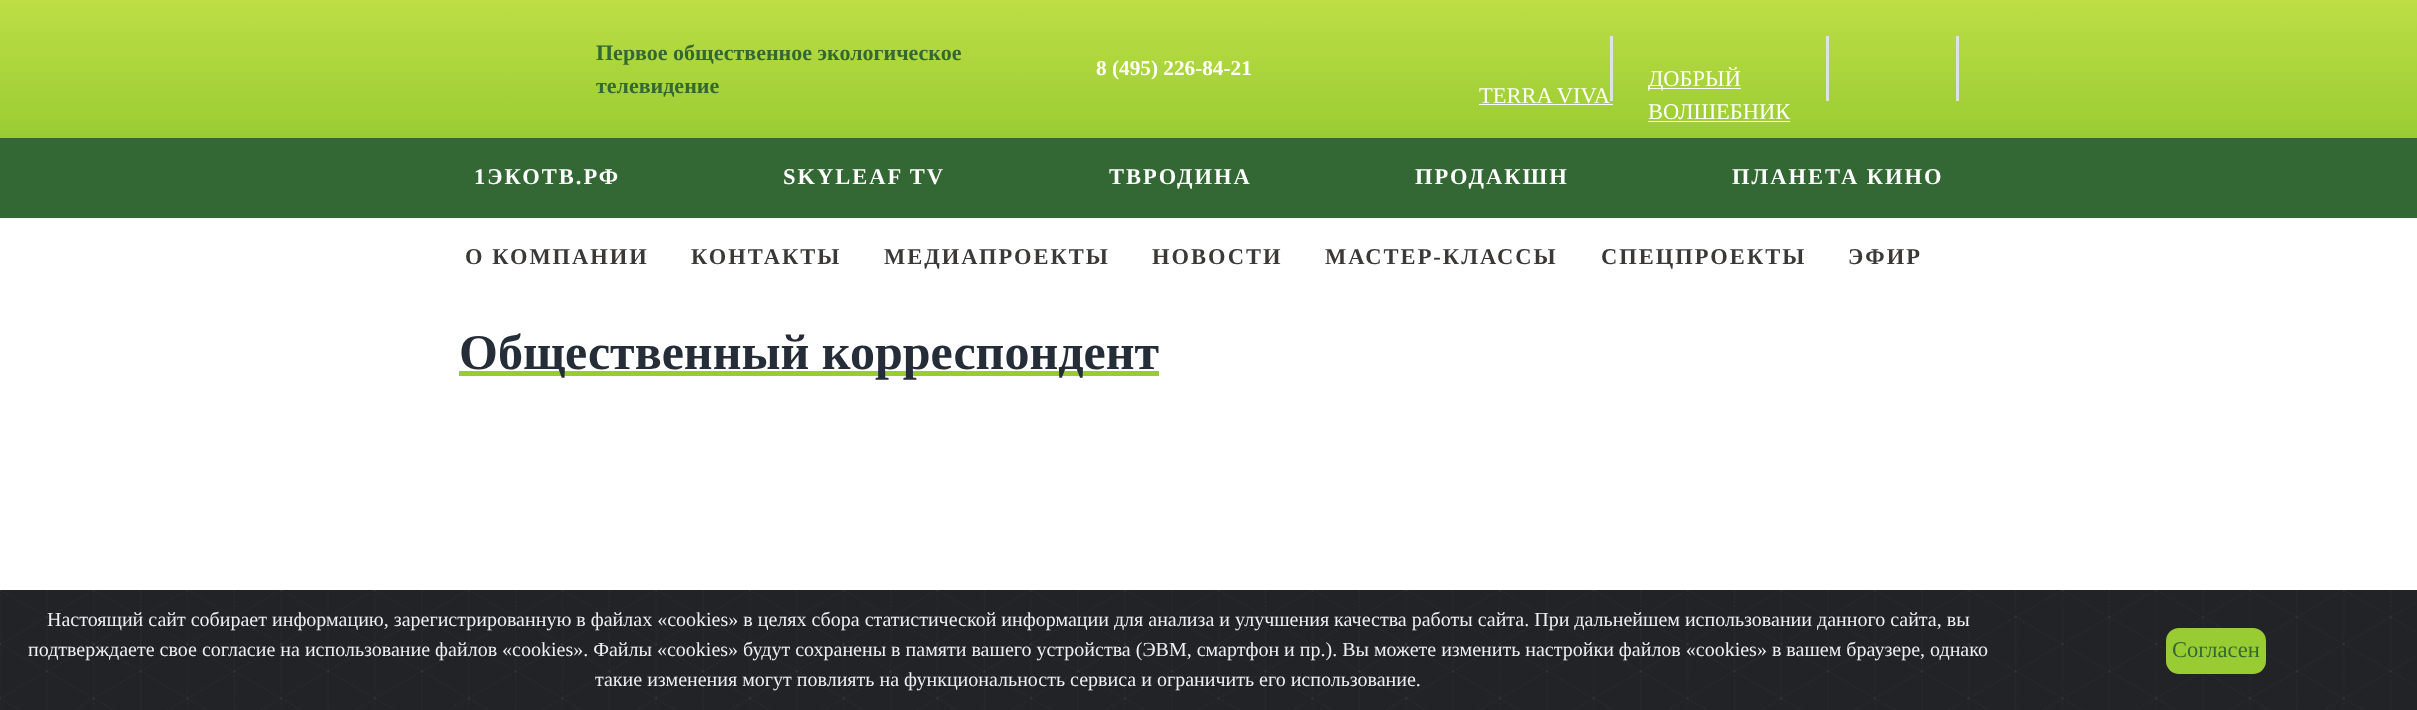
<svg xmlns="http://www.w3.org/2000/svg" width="2417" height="710">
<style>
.a{font:bold 22px Liberation Serif;fill:#336734}
.b{font:bold 21.25px Liberation Serif;fill:#fff}
.c{font:22.5px Liberation Serif;fill:#fff}
.d{font:bold 22.5px Liberation Serif;letter-spacing:2px;fill:#fff}
.e{font:bold 22.5px Liberation Serif;letter-spacing:2px;fill:#3a3937}
.f{font:bold 50px Liberation Serif;fill:#252e38}
.g{font:20px Liberation Serif;fill:#ecf0f1}
.h{font:22.5px Liberation Serif;fill:#336734}
</style>
<defs>
<linearGradient id="g1" gradientUnits="userSpaceOnUse" x1="1209" y1="138" x2="1209" y2="0"><stop offset="0" stop-color="#9acc33"/><stop offset="1" stop-color="#bdde45"/></linearGradient>
</defs>
<rect width="100%" height="100%" fill="#fff"/>
<path fill="url(#g1)" d="M0 0h2417v138H0z"/>
<path fill="#dee2e6" d="M1610 36h3v65H1610z"/>
<path fill="#fff" d="M1648 88h93v1H1648z"/>
<path fill="#fff" d="M1648 121h142v1H1648z"/>
<path fill="#dee2e6" d="M1826 36h3v65H1826z"/>
<path fill="#dee2e6" d="M1956 36h3v65H1956z"/>
<path fill="#fff" d="M1479 104h134v1H1479z"/>
<path fill="#336734" d="M0 138h2417v80H0z"/>
<path fill="#9c3" d="M459 371h700v5H459z"/>
<path fill="#212327" d="M2415 590h2v120H2415z"/>
<image href="1.png" x="0" y="590" width="2415" height="120"/>
<rect fill="#9c3" x="2166" y="628" width="100" height="46" rx="13"/>
<text class="a" x="596" y="60">Первое общественное экологическое</text>
<text class="a" x="596" y="93">телевидение</text>
<text class="b" x="1096" y="75">8 (495) 226-84-21</text>
<text class="c" x="1648" y="86">ДОБРЫЙ</text>
<text class="c" x="1648" y="119">ВОЛШЕБНИК</text>
<text class="c" x="1479" y="103">TERRA VIVA</text>
<text class="d" x="474" y="184">1ЭКОТВ.РФ</text>
<text class="d" x="783" y="184">SKYLEAF TV</text>
<text class="d" x="1109" y="184">ТВРОДИНА</text>
<text class="d" x="1415" y="184">ПРОДАКШН</text>
<text class="d" x="1732" y="184">ПЛАНЕТА КИНО</text>
<text class="e" x="465" y="264">О КОМПАНИИ</text>
<text class="e" x="691" y="264">КОНТАКТЫ</text>
<text class="e" x="884" y="264">МЕДИАПРОЕКТЫ</text>
<text class="e" x="1152" y="264">НОВОСТИ</text>
<text class="e" x="1325" y="264">МАСТЕР-КЛАССЫ</text>
<text class="e" x="1601" y="264">СПЕЦПРОЕКТЫ</text>
<text class="e" x="1848" y="264">ЭФИР</text>
<text class="f" x="459" y="369">Общественный корреспондент</text>
<text class="g" x="47" y="626">Настоящий сайт собирает информацию, зарегистрированную в файлах «cookies» в целях сбора статистической информации для анализа и улучшения качества работы сайта. При дальнейшем использовании данного сайта, вы</text>
<text class="g" x="28" y="656">подтверждаете свое согласие на использование файлов «cookies». Файлы «cookies» будут сохранены в памяти вашего устройства (ЭВМ, смартфон и пр.). Вы можете изменить настройки файлов «cookies» в вашем браузере, однако</text>
<text class="g" x="595" y="686">такие изменения могут повлиять на функциональность сервиса и ограничить его использование.</text>
<text class="h" x="2172" y="657">Согласен</text>
</svg>
